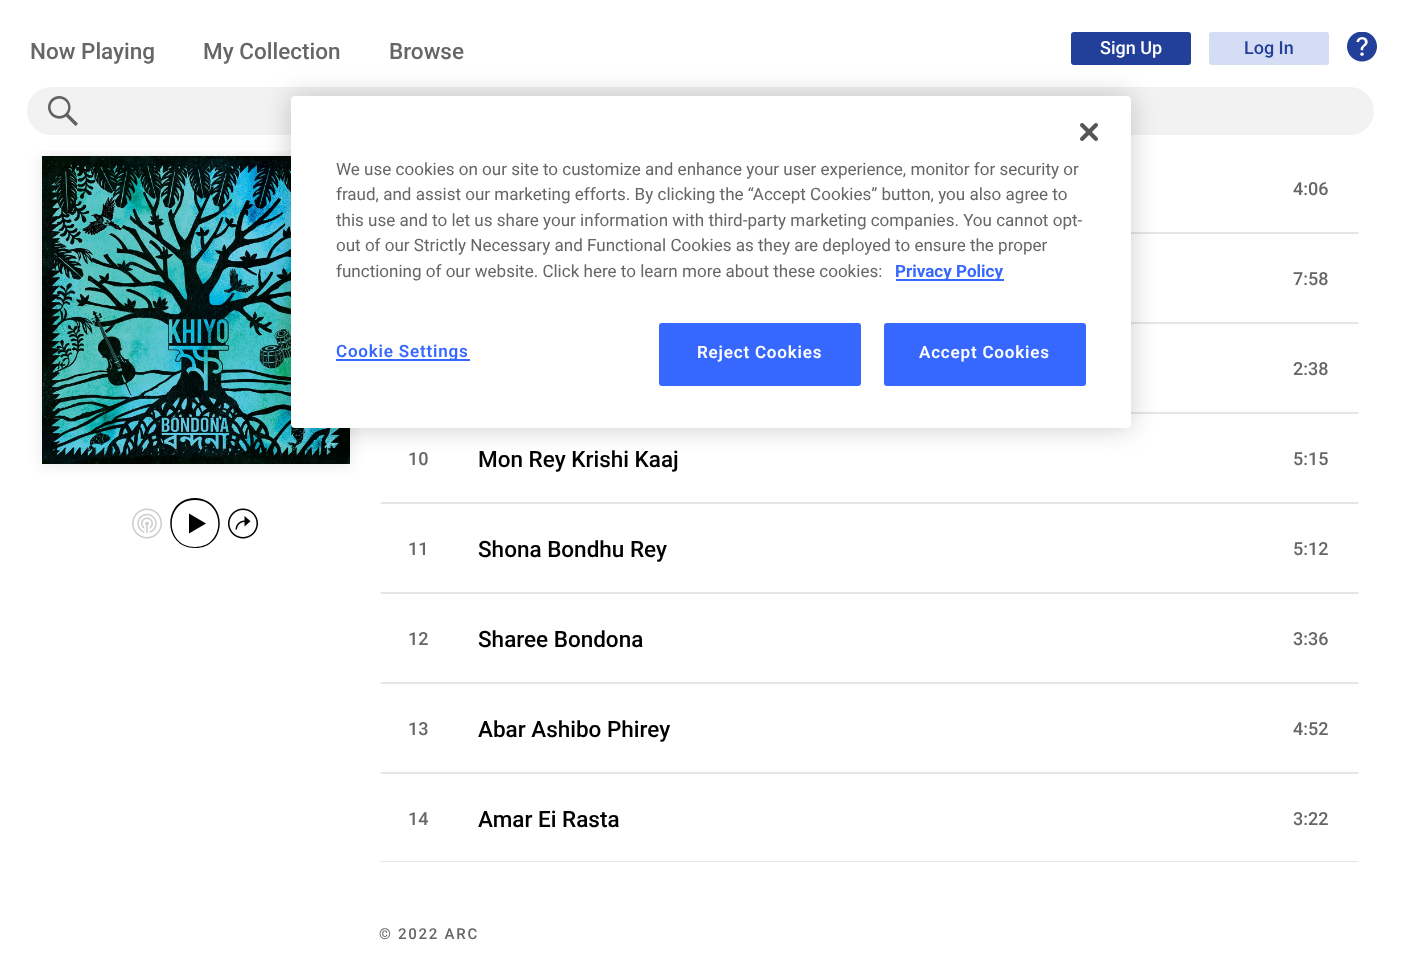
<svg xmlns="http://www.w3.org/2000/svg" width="1401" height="965">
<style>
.a{font:500 22.5px Roboto;fill:#666}
.b{font:500 18px Roboto;fill:#fff}
.c{font:500 18px Roboto;fill:#224099}
.d{font:500 18px Roboto;fill:#666}
.e{font:500 22.5px Roboto;fill:#000}
.f{font:500 15px Roboto;letter-spacing:1.75px;fill:#666}
.g{font:17.05px Roboto;fill:#666}
.h{font:bold 17.05px Roboto;fill:#3668ff}
.i{font:600 17.05px Roboto;letter-spacing:0.8px;fill:#3668ff}
.j{font:600 17.05px Roboto;letter-spacing:0.8px;fill:#fff}
</style>
<rect width="100%" height="100%" fill="#fff"/>
<path fill="#0000001a" filter="blur(7.5px)" d="M42 156h308v308H42z"/>
<path fill="#fff" d="M42 146h308v4H42z"/>
<rect fill="#224099" x="1071" y="32" width="120" height="33" rx="3"/>
<rect fill="#d5ddf5" x="1209" y="32" width="120" height="33" rx="3"/>
<image href="1.png" x="1347" y="32" width="30" height="30"/>
<rect fill="#f2f2f2" x="27" y="87" width="1347" height="48" rx="24"/>
<image href="2.png" x="48" y="96" width="30" height="30"/>
<image href="3.png" x="42" y="156" width="308" height="308"/>
<image href="4.png" x="132" y="508" width="30" height="31"/>
<path fill="#000" fill-rule="evenodd" d="M189 533.5v-20l17 10z"/>
<path fill="#000" d="M195 547c31 0 31-47 0-47c-31 0-31 47 0 47zm0 1c-33 0-33-50 0-50c33 1 33 50 0 50z"/>
<image href="5.png" x="228" y="508" width="30" height="31"/>
<path fill="#e6e6e6" d="M380 232h979l-1 2h-977z"/>
<path fill="#e6e6e6" d="M380 322h979l-1 2h-977z"/>
<path fill="#e6e6e6" d="M380 412h979l-1 2h-977z"/>
<path fill="#e6e6e6" d="M380 502h979l-1 2h-977z"/>
<path fill="#e6e6e6" d="M380 592h979l-1 2h-977z"/>
<path fill="#e6e6e6" d="M380 682h979l-1 2h-977z"/>
<path fill="#e6e6e6" d="M380 772h979l-1 2h-977z"/>
<path fill="#e6e6e6" d="M1359 862h-979l1-1h977z"/>
<rect fill="#00000033" filter="blur(13.5px)" x="291" y="96" width="840" height="332" rx="4"/>
<rect fill="#fff" x="291" y="96" width="840" height="332" rx="4"/>
<image href="6.png" x="1080" y="123" width="18" height="18"/>
<path fill="#3668ff" d="M896 279h108v2H896z"/>
<path fill="#3668ff" d="M336 359h134v2H336z"/>
<rect fill="#3668ff" stroke="#3668ff" stroke-width="2" x="660" y="324" width="200" height="61" rx="2"/>
<rect fill="#3668ff" stroke="#3668ff" stroke-width="2" x="885" y="324" width="200" height="61" rx="2"/>
<text class="a" x="30" y="59">Now Playing</text>
<text class="a" x="203" y="59">My Collection</text>
<text class="a" x="389" y="59">Browse</text>
<text class="b" x="1100" y="54">Sign Up</text>
<text class="c" x="1244" y="54">Log In</text>
<text class="d" x="1293" y="195">4:06</text>
<text class="d" x="1293" y="285">7:58</text>
<text class="d" x="1293" y="375">2:38</text>
<text class="d" x="408" y="465">10</text>
<text class="e" x="478" y="467">Mon Rey Krishi Kaaj</text>
<text class="d" x="1293" y="465">5:15</text>
<text class="d" x="408" y="555">11</text>
<text class="e" x="478" y="557">Shona Bondhu Rey</text>
<text class="d" x="1293" y="555">5:12</text>
<text class="d" x="408" y="645">12</text>
<text class="e" x="478" y="647">Sharee Bondona</text>
<text class="d" x="1293" y="645">3:36</text>
<text class="d" x="408" y="735">13</text>
<text class="e" x="478" y="737">Abar Ashibo Phirey</text>
<text class="d" x="1293" y="735">4:52</text>
<text class="d" x="408" y="825">14</text>
<text class="e" x="478" y="827">Amar Ei Rasta</text>
<text class="d" x="1293" y="825">3:22</text>
<text class="f" x="379" y="939">© 2022 ARC</text>
<text class="g" x="336" y="175">We use cookies on our site to customize and enhance your user experience, monitor for security or</text>
<text class="g" x="336" y="200">fraud, and assist our marketing efforts. By clicking the “Accept Cookies” button, you also agree to</text>
<text class="g" x="336" y="226">this use and to let us share your information with third-party marketing companies. You cannot opt-</text>
<text class="g" x="336" y="251">out of our Strictly Necessary and Functional Cookies as they are deployed to ensure the proper</text>
<text class="g" x="336" y="277">functioning of our website. Click here to learn more about these cookies:</text>
<text class="h" x="895" y="277">Privacy Policy</text>
<text class="i" x="336" y="357">Cookie Settings</text>
<text class="j" x="697" y="358">Reject Cookies</text>
<text class="j" x="919" y="358">Accept Cookies</text>
</svg>
